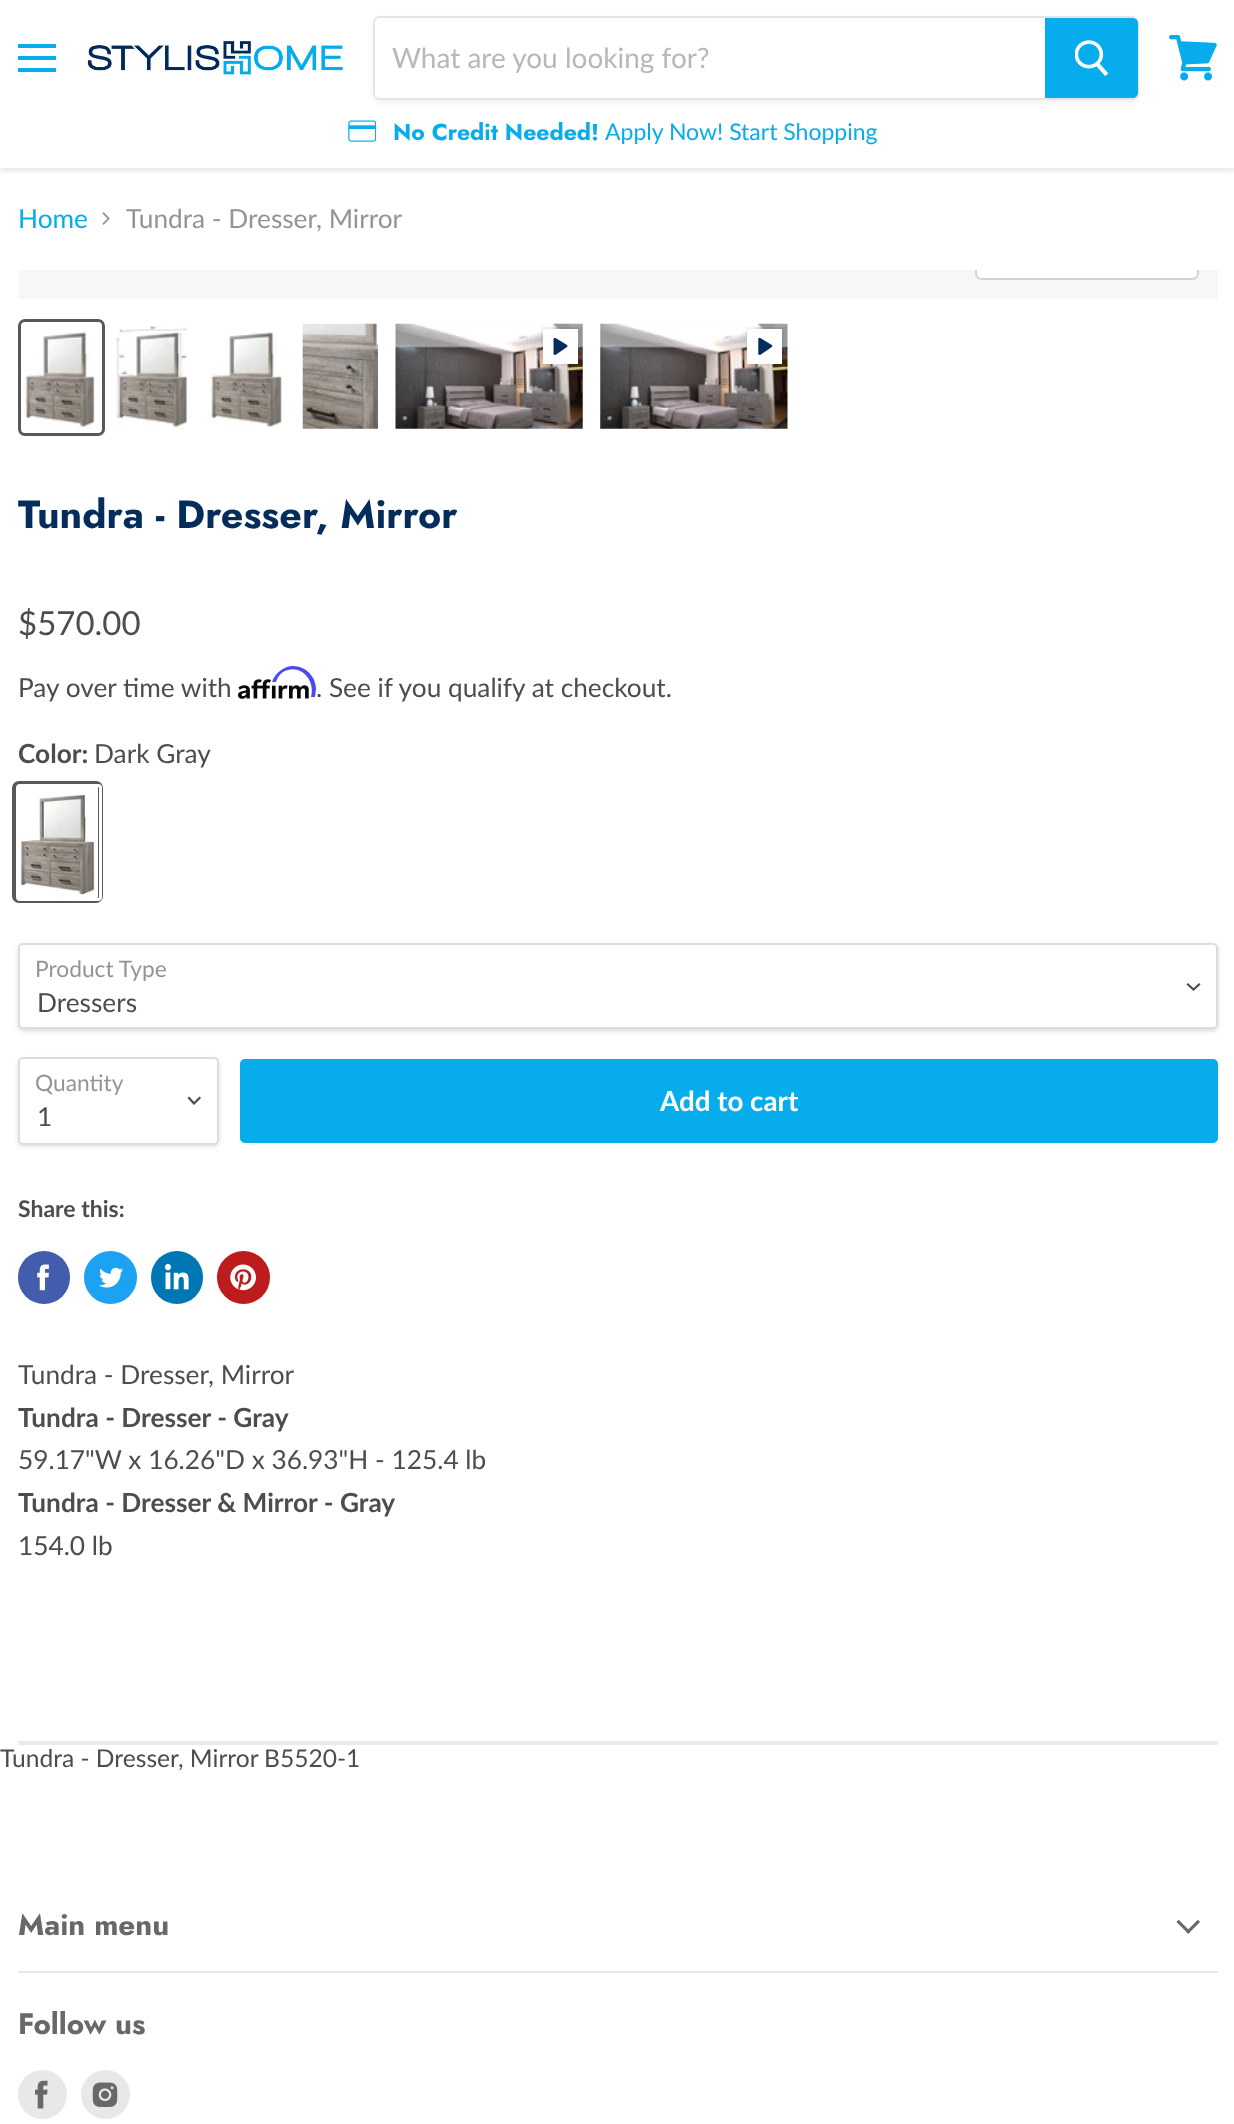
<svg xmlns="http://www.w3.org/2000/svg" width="1234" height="2124">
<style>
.a{font:28px Lato;fill:#b8b8b8}
.b{font:bold 23px Jost;fill:#07acec}
.c{font:23px Lato;fill:#07acec}
.d{font:26.25px Lato;fill:#07acec}
.e{font:26.25px Lato;fill:#949494}
.f{font:bold 39.4px Jost;fill:#052d5c}
.g{font:33px Lato;fill:#4d4d4d}
.h{font:26.25px Lato;fill:#4d4d4d}
.i{font:bold 26.25px Lato;fill:#4d4d4d}
.j{font:22.75px Lato;fill:#949494}
.k{font:bold 27.75px Lato;fill:#fff}
.l{font:bold 23px Lato;fill:#4d4d4d}
.m{font:24.6px Lato;fill:#4d4d4d}
.n{font:bold 29.5px Jost;fill:#686868}
</style>
<defs>
<clipPath id="clip1"><path d="M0 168h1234v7H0z"/></clipPath>
<clipPath id="clip2"><path d="M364 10h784v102h-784zm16 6h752c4 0 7 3 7 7v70c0 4-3 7-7 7h-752c-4 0-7-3-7-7v-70c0-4 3-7 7-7z" clip-rule="evenodd"/></clipPath>
<clipPath id="clip3"><path d="M18 270h1200v29H18z"/></clipPath>
</defs>
<rect width="100%" height="100%" fill="#fff"/>
<g clip-path="url(#clip1)">
<path fill="#7f7f7f40" filter="blur(3.5px)" d="M0 2h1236v168H0z"/>
</g>
<path fill="#07acec" d="M18 44h38v4H18z"/>
<path fill="#07acec" d="M18 56h38v4H18z"/>
<path fill="#07acec" d="M18 68h38v4H18z"/>
<image href="1.png" x="86" y="41" width="257" height="34"/>
<g clip-path="url(#clip2)">
<rect fill="#7f7f7f1c" filter="blur(2.5px)" x="373" y="19" width="766" height="84" rx="7"/>
</g>
<rect fill="none" stroke="#7f7f7f33" stroke-width="2" x="374" y="17" width="764" height="82" rx="6"/>
<path fill="#fff" d="M380 18h665v80h-665c-3 0-5-2-5-5v-70c0-3 2-5 5-5z"/>
<path fill="#07acec" stroke="#07acec" stroke-width="2" d="M1046 19h87c2 0 4 2 4 4v70c0 2-2 4-4 4h-87z"/>
<image href="2.png" x="1075" y="40" width="34" height="37"/>
<image href="3.png" x="348" y="120" width="28" height="22"/>
<image href="4.png" x="1169" y="35" width="48" height="46"/>
<image href="5.png" x="102" y="212" width="8" height="13"/>
<path fill="#f7f7f7" d="M18 270h1200v29H18z"/>
<g clip-path="url(#clip3)">
<rect fill="none" stroke="#d2d2d2" stroke-width="2" x="976" y="230" width="222" height="49" rx="6"/>
</g>
<path fill="#ffffffe6" d="M977 270h220v3c0 3-2 5-5 5h-210c-3 0-5-2-5-5z"/>
<rect fill="none" stroke="#585858" stroke-width="3" x="19.5" y="320.5" width="84" height="114" rx="5.5"/>
<image href="6.png" x="23" y="332" width="72" height="96"/>
<image href="7.png" x="116" y="326" width="72" height="102"/>
<image href="8.png" x="208" y="332" width="74" height="96"/>
<image href="9.png" x="302" y="323" width="76" height="106"/>
<image href="10.png" x="395" y="323" width="188" height="106"/>
<path fill="none" stroke="#052d5c0d" stroke-width="2" d="M542 328h36v37H542z"/>
<path fill="#fff" d="M543 329h35v35H543z"/>
<image href="11.png" x="553" y="337" width="15" height="18"/>
<image href="12.png" x="600" y="323" width="188" height="106"/>
<path fill="none" stroke="#052d5c0d" stroke-width="2" d="M747 328h36v37H747z"/>
<path fill="#fff" d="M747 329h35v35H747z"/>
<image href="13.png" x="758" y="337" width="15" height="18"/>
<image href="14.png" x="238" y="679" width="71" height="20"/>
<path fill="#4a4af4" d="M293 666c-9 0-18 7-21 16h4c1-4 4-8 7-10c17-10 33 8 28 25h4l1-8c0-12-10-23-23-23z"/>
<rect fill="none" stroke="#585858" stroke-width="5" x="14.5" y="783.5" width="86" height="117" rx="4.5"/>
<rect fill="none" stroke="#fff" stroke-width="3" x="17.5" y="785.5" width="83" height="114" rx="2.5"/>
<image href="15.png" x="20" y="787" width="78" height="111"/>
<rect fill="#00000026" filter="blur(2px)" x="18" y="945" width="1200" height="86" rx="5"/>
<rect fill="#fff" stroke="#ddd" stroke-width="2" x="19" y="944" width="1198" height="84" rx="4"/>
<path fill="none" stroke="#4d4d4d" stroke-width="2.2" stroke-linecap="square" d="M1193.5 989.5l5.5-5m-5.5 5l-5.5-5"/>
<rect fill="#00000026" filter="blur(2px)" x="18" y="1059" width="201" height="87" rx="5"/>
<rect fill="#fff" stroke="#ddd" stroke-width="2" x="19" y="1058" width="199" height="86" rx="4"/>
<path fill="none" stroke="#4d4d4d" stroke-width="2.2" stroke-linecap="square" d="M194 1103.5l5.5-5.5m-5.5 5.5l-5-5.5"/>
<rect fill="#07acec" stroke="#07acec" stroke-width="2" x="241" y="1060" width="976" height="82" rx="4"/>
<rect fill="#425dab" x="18" y="1251" width="52" height="53" rx="26"/>
<image href="16.png" x="37" y="1264" width="12" height="27"/>
<circle fill="#1da1f2" cx="110.5" cy="1277.5" r="26.5"/>
<image href="17.png" x="99" y="1267" width="25" height="21"/>
<rect fill="#0077b5" x="151" y="1251" width="52" height="53" rx="26"/>
<image href="18.png" x="164" y="1263" width="25" height="27"/>
<circle fill="#bd1c1c" cx="243.5" cy="1277.5" r="26.5"/>
<image href="19.png" x="230" y="1264" width="26" height="27"/>
<path fill="#eaeaea" d="M18 1741h1200v4H18z"/>
<path fill="#e8e8e8" d="M18 1971h1200v2H18z"/>
<image href="20.png" x="1176" y="1920" width="24" height="14"/>
<circle fill="#e8e8e8" cx="42.5" cy="2094.5" r="24.5"/>
<image href="21.png" x="35" y="2080" width="13" height="29"/>
<circle fill="#e8e8e8" cx="105.5" cy="2094.5" r="24.5"/>
<image href="22.png" x="92" y="2082" width="26" height="25"/>
<text class="a" x="392" y="68">What are you looking for?</text>
<text class="b" x="393" y="140">No Credit Needed!</text>
<text class="c" x="605" y="140">Apply Now! Start Shopping</text>
<text class="d" x="18" y="228">Home</text>
<text class="e" x="126" y="228">Tundra - Dresser, Mirror</text>
<text class="f" x="18" y="528">Tundra - Dresser, Mirror</text>
<text class="g" x="18" y="635">$570.00</text>
<text class="h" x="18" y="697">Pay over time with</text>
<text class="h" x="316" y="697">. See if you qualify at checkout.</text>
<text class="i" x="18" y="763">Color:</text>
<text class="h" x="94" y="763">Dark Gray</text>
<text class="j" x="35" y="977">Product Type</text>
<text class="h" x="37" y="1012">Dressers</text>
<text class="j" x="35" y="1091">Quantity</text>
<text class="h" x="37" y="1126">1</text>
<text class="k" x="660" y="1111">Add to cart</text>
<text class="l" x="18" y="1217">Share this:</text>
<text class="h" x="18" y="1384">Tundra - Dresser, Mirror</text>
<text class="i" x="18" y="1427">Tundra - Dresser - Gray</text>
<text class="h" x="18" y="1469">59.17"W x 16.26"D x 36.93"H - 125.4 lb</text>
<text class="i" x="18" y="1512">Tundra - Dresser &amp; Mirror - Gray</text>
<text class="h" x="18" y="1555">154.0 lb</text>
<text class="m" x="0" y="1767">Tundra - Dresser, Mirror</text>
<text class="m" x="264" y="1767">B5520-1</text>
<text class="n" x="18" y="1935">Main menu</text>
<text class="n" x="18" y="2034">Follow us</text>
</svg>
